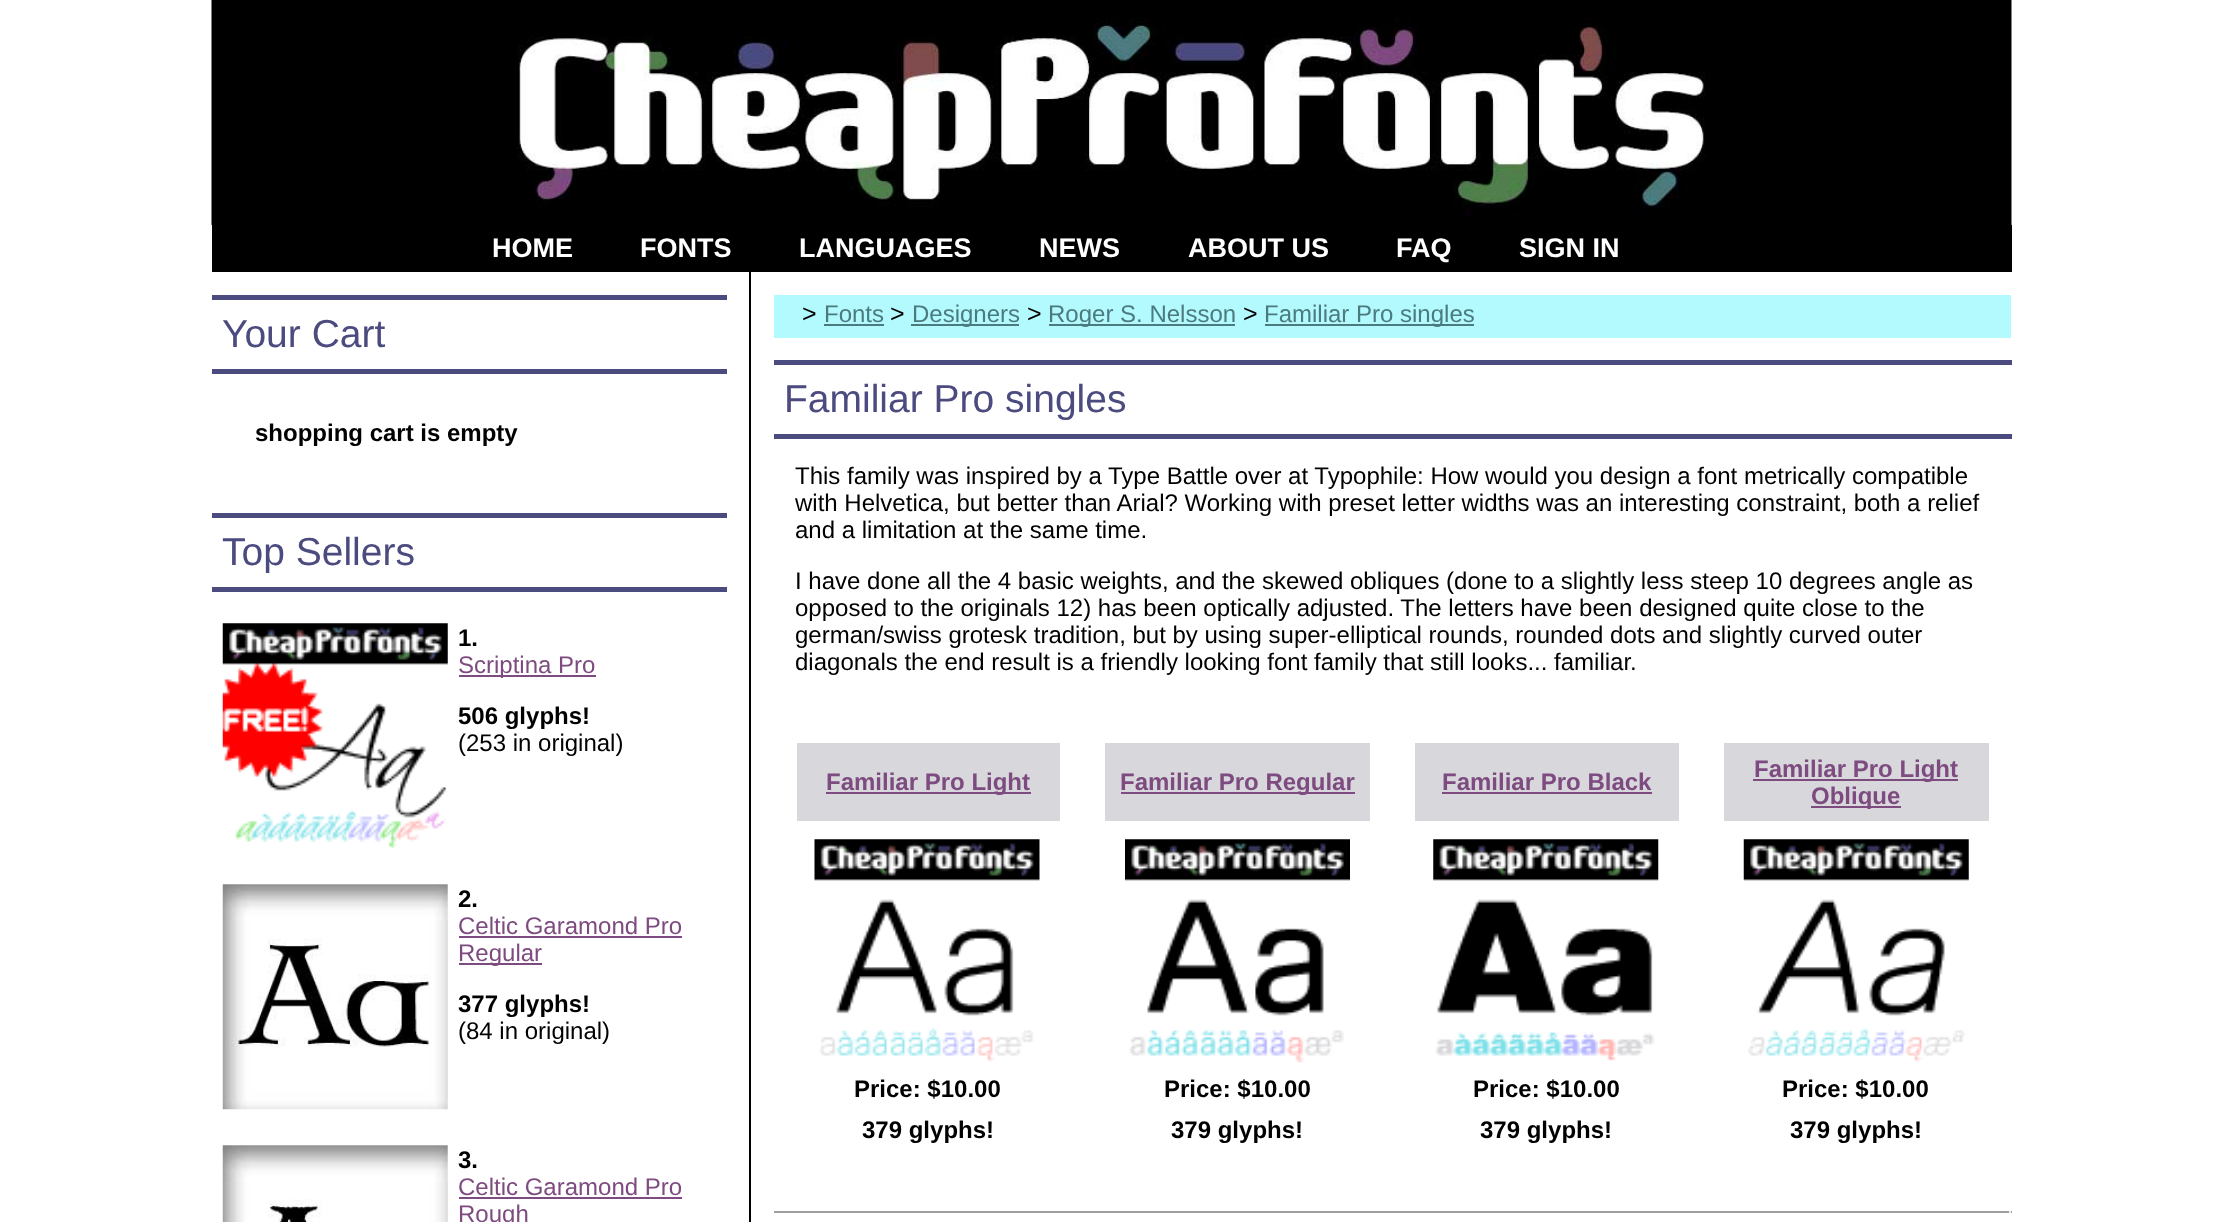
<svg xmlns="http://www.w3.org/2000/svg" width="2219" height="1222">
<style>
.a{font:bold 27px Liberation Sans;fill:#fff}
.b{font:39px Liberation Sans;fill:#4b4b7f}
.c{font:bold 24px Liberation Sans;fill:#000}
.d{font:24px Liberation Sans;fill:#7d4b7f}
.e{font:24px Liberation Sans;fill:#000}
.f{font:25px Liberation Sans;fill:#000}
.g{font:24px Liberation Sans;fill:#4b7b7f}
.h{font:bold 24px Liberation Sans;fill:#7d4b7f}
</style>
<rect width="100%" height="100%" fill="#fff"/>
<image href="1.png" x="211" y="0" width="1801" height="225"/>
<path fill="#000" d="M212 225h1800v47H212z"/>
<path fill="#000" d="M749 272h2v950H749z"/>
<path fill="#4b4b7f" d="M212 295h515v5H212z"/>
<path fill="#4b4b7f" d="M212 369h515v5H212z"/>
<path fill="#4b4b7f" d="M212 513h515v5H212z"/>
<path fill="#4b4b7f" d="M212 587h515v5H212z"/>
<image href="2.png" x="222" y="623" width="226" height="226"/>
<path fill="#7d4b7f" d="M459 675h137v2H459z"/>
<image href="3.png" x="222" y="884" width="226" height="226"/>
<path fill="#7d4b7f" d="M459 936h223v2H459z"/>
<path fill="#7d4b7f" d="M459 963h83v2H459z"/>
<image href="4.png" x="222" y="1145" width="226" height="77"/>
<path fill="#7d4b7f" d="M459 1197h223v2H459z"/>
<path fill="#b3faff" d="M774 295h1237v43H774z"/>
<path fill="#4b7b7f" d="M824 324h60v2H824z"/>
<path fill="#4b7b7f" d="M911 324h108v2H911z"/>
<path fill="#4b7b7f" d="M1049 324h186v2H1049z"/>
<path fill="#4b7b7f" d="M1265 324h209v2H1265z"/>
<path fill="#4b4b7f" d="M774 360h1238v5H774z"/>
<path fill="#4b4b7f" d="M774 434h1238v5H774z"/>
<path fill="#d7d7dc" d="M797 743h263v78H797z"/>
<path fill="#7d4b7f" d="M826 792h205v2H826z"/>
<image href="5.png" x="814" y="839" width="226" height="223"/>
<path fill="#d7d7dc" d="M1105 743h265v78H1105z"/>
<path fill="#7d4b7f" d="M1121 792h234v2H1121z"/>
<image href="6.png" x="1125" y="839" width="225" height="224"/>
<path fill="#d7d7dc" d="M1415 743h264v78H1415z"/>
<path fill="#7d4b7f" d="M1442 792h210v2H1442z"/>
<image href="7.png" x="1433" y="839" width="226" height="222"/>
<path fill="#d7d7dc" d="M1724 743h265v78H1724z"/>
<path fill="#7d4b7f" d="M1753 779h205v2H1753z"/>
<path fill="#7d4b7f" d="M1811 806h90v2H1811z"/>
<image href="8.png" x="1743" y="839" width="226" height="224"/>
<path fill="#9f9f9f" d="M774 1211h1238v2H774z"/>
<path fill="#eee" d="M2009 1211h2v2H2009z"/>
<text class="a" x="492" y="257">HOME</text>
<text class="a" x="640" y="257">FONTS</text>
<text class="a" x="799" y="257">LANGUAGES</text>
<text class="a" x="1039" y="257">NEWS</text>
<text class="a" x="1188" y="257">ABOUT US</text>
<text class="a" x="1396" y="257">FAQ</text>
<text class="a" x="1519" y="257">SIGN IN</text>
<text class="b" x="222" y="347">Your Cart</text>
<text class="c" x="255" y="441">shopping cart is empty</text>
<text class="b" x="222" y="565">Top Sellers</text>
<text class="c" x="458" y="646">1.</text>
<text class="d" x="458" y="673">Scriptina Pro</text>
<text class="c" x="458" y="724">506 glyphs!</text>
<text class="e" x="458" y="751">(253 in original)</text>
<text class="c" x="458" y="907">2.</text>
<text class="d" x="458" y="934">Celtic Garamond Pro</text>
<text class="d" x="458" y="961">Regular</text>
<text class="c" x="458" y="1012">377 glyphs!</text>
<text class="e" x="458" y="1039">(84 in original)</text>
<text class="c" x="458" y="1168">3.</text>
<text class="d" x="458" y="1195">Celtic Garamond Pro</text>
<text class="d" x="458" y="1222">Rough</text>
<text class="f" x="802" y="322">&gt;</text>
<text class="g" x="824" y="322">Fonts</text>
<text class="f" x="890" y="322">&gt;</text>
<text class="g" x="912" y="322">Designers</text>
<text class="f" x="1027" y="322">&gt;</text>
<text class="g" x="1048" y="322">Roger S. Nelsson</text>
<text class="f" x="1243" y="322">&gt;</text>
<text class="g" x="1264" y="322">Familiar Pro singles</text>
<text class="b" x="784" y="412">Familiar Pro singles</text>
<text class="e" x="795" y="484">This family was inspired by a Type Battle over at Typophile: How would you design a font metrically compatible</text>
<text class="e" x="795" y="511">with Helvetica, but better than Arial? Working with preset letter widths was an interesting constraint, both a relief</text>
<text class="e" x="795" y="538">and a limitation at the same time.</text>
<text class="e" x="795" y="589">I have done all the 4 basic weights, and the skewed obliques (done to a slightly less steep 10 degrees angle as</text>
<text class="e" x="795" y="616">opposed to the originals 12) has been optically adjusted. The letters have been designed quite close to the</text>
<text class="e" x="795" y="643">german/swiss grotesk tradition, but by using super-elliptical rounds, rounded dots and slightly curved outer</text>
<text class="e" x="795" y="670">diagonals the end result is a friendly looking font family that still looks... familiar.</text>
<text class="h" x="826" y="790">Familiar Pro Light</text>
<text class="c" x="854" y="1097">Price: $10.00</text>
<text class="c" x="862" y="1138">379 glyphs!</text>
<text class="h" x="1120" y="790">Familiar Pro Regular</text>
<text class="c" x="1164" y="1097">Price: $10.00</text>
<text class="c" x="1171" y="1138">379 glyphs!</text>
<text class="h" x="1442" y="790">Familiar Pro Black</text>
<text class="c" x="1473" y="1097">Price: $10.00</text>
<text class="c" x="1480" y="1138">379 glyphs!</text>
<text class="h" x="1754" y="777">Familiar Pro Light</text>
<text class="h" x="1811" y="804">Oblique</text>
<text class="c" x="1782" y="1097">Price: $10.00</text>
<text class="c" x="1790" y="1138">379 glyphs!</text>
</svg>
